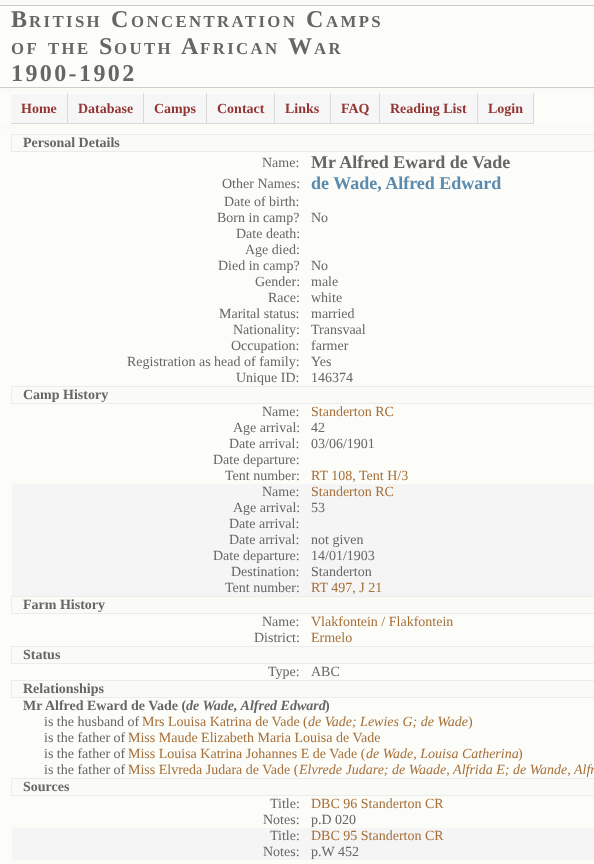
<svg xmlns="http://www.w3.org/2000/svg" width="594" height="864">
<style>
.a{font:bold 24px Liberation Serif;letter-spacing:2.4px;fill:#666}
.b{font:bold 16.75px Liberation Serif;letter-spacing:2.4px;fill:#666}
.c{font:bold 14px Liberation Serif;fill:#953434}
.d{font:bold 14px Liberation Serif;fill:#666}
.e{font:14px Liberation Serif;fill:#666}
.f{font:bold 18px Liberation Serif;fill:#666}
.g{font:bold 18px Liberation Serif;fill:#5a8aae}
.h{font:14px Liberation Serif;fill:#a56f38}
.i{font:italic bold 14px Liberation Serif;fill:#666}
.j{font:italic 14px Liberation Serif;fill:#a56f38}
</style>
<rect width="100%" height="100%" fill="#fafbf6"/>
<path fill="#fcfcf9" d="M0 6h594v81H0z"/>
<path fill="#ccc" d="M0 5h594v1H0z"/>
<path fill="#ccc" d="M0 87h594v1H0z"/>
<path fill="#fcfcf9" d="M0 93h594v31H0z"/>
<path fill="#f6f6f6" d="M11 94h56v29H11z"/>
<path fill="#fff" d="M11 93h523v1H11z"/>
<path fill="#d9d9d9" d="M67 93h1v31H67z"/>
<path fill="#d9d9d9" d="M11 123h57v1H11z"/>
<path fill="#f6f6f6" d="M68 94h75v29H68z"/>
<path fill="#d9d9d9" d="M143 93h1v31H143z"/>
<path fill="#d9d9d9" d="M68 123h76v1H68z"/>
<path fill="#f6f6f6" d="M144 94h62v29H144z"/>
<path fill="#d9d9d9" d="M206 93h1v31H206z"/>
<path fill="#d9d9d9" d="M144 123h63v1H144z"/>
<path fill="#f6f6f6" d="M207 94h67v29H207z"/>
<path fill="#d9d9d9" d="M274 93h1v31H274z"/>
<path fill="#d9d9d9" d="M207 123h68v1H207z"/>
<path fill="#f6f6f6" d="M275 94h55v29H275z"/>
<path fill="#d9d9d9" d="M330 93h1v31H330z"/>
<path fill="#d9d9d9" d="M275 123h56v1H275z"/>
<path fill="#f6f6f6" d="M331 94h48v29H331z"/>
<path fill="#d9d9d9" d="M379 93h1v31H379z"/>
<path fill="#d9d9d9" d="M331 123h49v1H331z"/>
<path fill="#f6f6f6" d="M380 94h97v29H380z"/>
<path fill="#d9d9d9" d="M477 93h1v31H477z"/>
<path fill="#d9d9d9" d="M380 123h98v1H380z"/>
<path fill="#f6f6f6" d="M478 94h55v29H478z"/>
<path fill="#d9d9d9" d="M533 93h1v31H533z"/>
<path fill="#d9d9d9" d="M478 123h56v1H478z"/>
<path fill="#fcfcf9" d="M0 129h594v735H0z"/>
<path fill="#fafbf6" d="M12 135h582v16H12z"/>
<path fill="#ececec" d="M11 134h583v1H11z"/>
<path fill="#ececec" d="M11 151h583v1H11z"/>
<path fill="#ececec" d="M11 134h1v18H11z"/>
<path fill="#fafbf6" d="M12 387h582v16H12z"/>
<path fill="#ececec" d="M11 386h583v1H11z"/>
<path fill="#ececec" d="M11 403h583v1H11z"/>
<path fill="#ececec" d="M11 386h1v18H11z"/>
<path fill="#f5f5f5" d="M12 484h582v112H12z"/>
<path fill="#fafbf6" d="M12 597h582v16H12z"/>
<path fill="#ececec" d="M11 596h583v1H11z"/>
<path fill="#ececec" d="M11 613h583v1H11z"/>
<path fill="#ececec" d="M11 596h1v18H11z"/>
<path fill="#fafbf6" d="M12 647h582v16H12z"/>
<path fill="#ececec" d="M11 646h583v1H11z"/>
<path fill="#ececec" d="M11 663h583v1H11z"/>
<path fill="#ececec" d="M11 646h1v18H11z"/>
<path fill="#fafbf6" d="M12 681h582v16H12z"/>
<path fill="#ececec" d="M11 680h583v1H11z"/>
<path fill="#ececec" d="M11 697h583v1H11z"/>
<path fill="#ececec" d="M11 680h1v18H11z"/>
<path fill="#fafbf6" d="M12 779h582v16H12z"/>
<path fill="#ececec" d="M11 778h583v1H11z"/>
<path fill="#ececec" d="M11 795h583v1H11z"/>
<path fill="#ececec" d="M11 778h1v18H11z"/>
<path fill="#f5f5f5" d="M12 828h582v32H12z"/>
<text class="a" x="11" y="27">B</text>
<text class="b" x="29" y="27">RITISH</text>
<text class="a" x="111" y="27">C</text>
<text class="b" x="131" y="27">ONCENTRATION</text>
<text class="a" x="306" y="27">C</text>
<text class="b" x="326" y="27">AMPS</text>
<text class="b" x="11" y="54">OF</text>
<text class="b" x="48" y="54">THE</text>
<text class="a" x="99" y="54">S</text>
<text class="b" x="114" y="54">OUTH</text>
<text class="a" x="181" y="54">A</text>
<text class="b" x="200" y="54">FRICAN</text>
<text class="a" x="288" y="54">W</text>
<text class="b" x="314" y="54">AR</text>
<text class="a" x="11" y="81">1900-1902</text>
<text class="c" x="21" y="113">Home</text>
<text class="c" x="78" y="113">Database</text>
<text class="c" x="154" y="113">Camps</text>
<text class="c" x="217" y="113">Contact</text>
<text class="c" x="285" y="113">Links</text>
<text class="c" x="341" y="113">FAQ</text>
<text class="c" x="390" y="113">Reading List</text>
<text class="c" x="488" y="113">Login</text>
<text class="d" x="23" y="147">Personal Details</text>
<text class="e" x="262" y="167">Name:</text>
<text class="f" x="311" y="168">Mr Alfred Eward de Vade</text>
<text class="e" x="222" y="188">Other Names:</text>
<text class="g" x="311" y="189">de Wade, Alfred Edward</text>
<text class="e" x="224" y="206">Date of birth:</text>
<text class="e" x="217" y="222">Born in camp?</text>
<text class="e" x="311" y="222">No</text>
<text class="e" x="236" y="238">Date death:</text>
<text class="e" x="245" y="254">Age died:</text>
<text class="e" x="218" y="270">Died in camp?</text>
<text class="e" x="311" y="270">No</text>
<text class="e" x="255" y="286">Gender:</text>
<text class="e" x="311" y="286">male</text>
<text class="e" x="268" y="302">Race:</text>
<text class="e" x="311" y="302">white</text>
<text class="e" x="219" y="318">Marital status:</text>
<text class="e" x="311" y="318">married</text>
<text class="e" x="233" y="334">Nationality:</text>
<text class="e" x="311" y="334">Transvaal</text>
<text class="e" x="231" y="350">Occupation:</text>
<text class="e" x="311" y="350">farmer</text>
<text class="e" x="127" y="366">Registration as head of family:</text>
<text class="e" x="311" y="366">Yes</text>
<text class="e" x="236" y="382">Unique ID:</text>
<text class="e" x="311" y="382">146374</text>
<text class="d" x="23" y="399">Camp History</text>
<text class="e" x="262" y="416">Name:</text>
<text class="h" x="311" y="416">Standerton RC</text>
<text class="e" x="233" y="432">Age arrival:</text>
<text class="e" x="311" y="432">42</text>
<text class="e" x="229" y="448">Date arrival:</text>
<text class="e" x="311" y="448">03/06/1901</text>
<text class="e" x="213" y="464">Date departure:</text>
<text class="e" x="225" y="480">Tent number:</text>
<text class="h" x="311" y="480">RT 108, Tent H/3</text>
<text class="e" x="262" y="496">Name:</text>
<text class="h" x="311" y="496">Standerton RC</text>
<text class="e" x="233" y="512">Age arrival:</text>
<text class="e" x="311" y="512">53</text>
<text class="e" x="229" y="528">Date arrival:</text>
<text class="e" x="229" y="544">Date arrival:</text>
<text class="e" x="311" y="544">not given</text>
<text class="e" x="213" y="560">Date departure:</text>
<text class="e" x="311" y="560">14/01/1903</text>
<text class="e" x="231" y="576">Destination:</text>
<text class="e" x="311" y="576">Standerton</text>
<text class="e" x="225" y="592">Tent number:</text>
<text class="h" x="311" y="592">RT 497, J 21</text>
<text class="d" x="23" y="609">Farm History</text>
<text class="e" x="262" y="626">Name:</text>
<text class="h" x="311" y="626">Vlakfontein / Flakfontein</text>
<text class="e" x="254" y="642">District:</text>
<text class="h" x="311" y="642">Ermelo</text>
<text class="d" x="23" y="659">Status</text>
<text class="e" x="268" y="676">Type:</text>
<text class="e" x="311" y="676">ABC</text>
<text class="d" x="23" y="693">Relationships</text>
<text class="d" x="23" y="710">Mr Alfred Eward de Vade (</text>
<text class="i" x="186" y="710">de Wade, Alfred Edward</text>
<text class="d" x="325" y="710">)</text>
<text class="e" x="44" y="726">is the husband of</text>
<text class="h" x="142" y="726">Mrs Louisa Katrina de Vade (</text>
<text class="j" x="308" y="726">de Vade; Lewies G; de Wade</text>
<text class="h" x="468" y="726">)</text>
<text class="e" x="44" y="742">is the father of</text>
<text class="h" x="128" y="742">Miss Maude Elizabeth Maria Louisa de Vade</text>
<text class="e" x="44" y="758">is the father of</text>
<text class="h" x="128" y="758">Miss Louisa Katrina Johannes E de Vade (</text>
<text class="j" x="366" y="758">de Wade, Louisa Catherina</text>
<text class="h" x="518" y="758">)</text>
<text class="e" x="44" y="774">is the father of</text>
<text class="h" x="128" y="774">Miss Elvreda Judara de Vade (</text>
<text class="j" x="299" y="774">Elvrede Judare; de Waade, Alfrida E; de Wande, Alfr</text>
<text class="d" x="23" y="791">Sources</text>
<text class="e" x="270" y="808">Title:</text>
<text class="h" x="311" y="808">DBC 96 Standerton CR</text>
<text class="e" x="263" y="824">Notes:</text>
<text class="e" x="311" y="824">p.D 020</text>
<text class="e" x="270" y="840">Title:</text>
<text class="h" x="311" y="840">DBC 95 Standerton CR</text>
<text class="e" x="263" y="856">Notes:</text>
<text class="e" x="311" y="856">p.W 452</text>
</svg>
